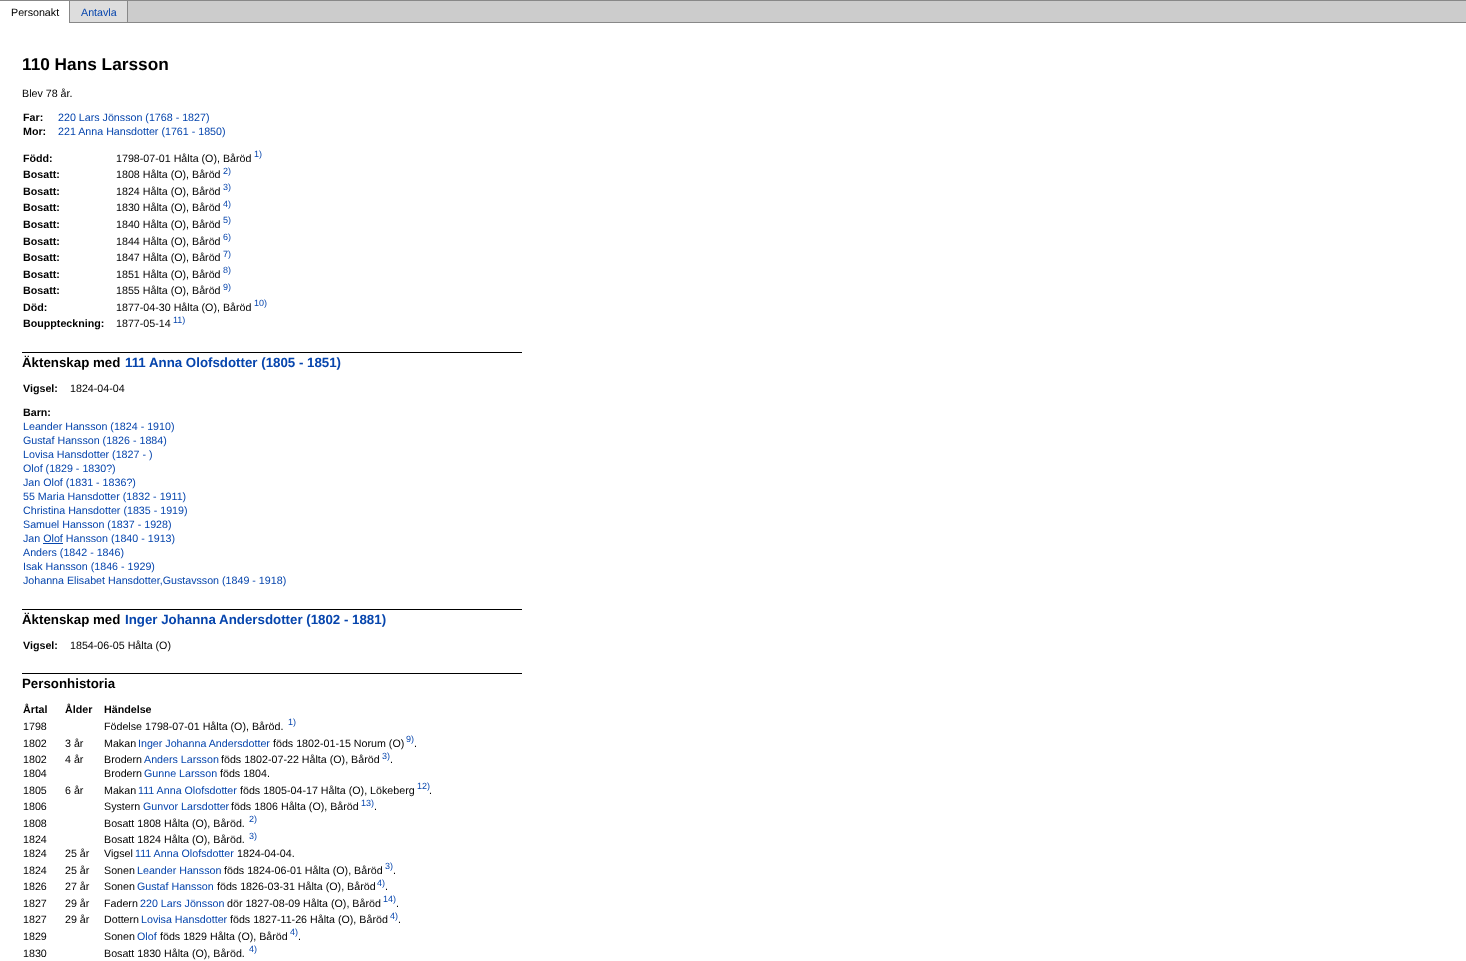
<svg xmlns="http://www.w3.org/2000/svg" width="1466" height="961">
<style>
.a{font:10.7px Liberation Sans;fill:#000}
.b{font:10.7px Liberation Sans;fill:#0645ad}
.c{font:bold 17.25px Liberation Sans;fill:#000}
.d{font:bold 10.7px Liberation Sans;fill:#000}
.e{font:9px Liberation Sans;fill:#0645ad}
.f{font:bold 13.3px Liberation Sans;fill:#000}
.g{font:bold 13.3px Liberation Sans;fill:#0645ad}
</style>
<rect width="100%" height="100%" fill="#fff"/>
<path fill="#888" d="M0 0h1466v1H0z"/>
<path fill="#888" d="M69 0h1v23H69z"/>
<path fill="#ddd" d="M70 1h57v21H70z"/>
<path fill="#888" d="M127 0h1v23H127z"/>
<path fill="#888" d="M70 22h1396v1H70z"/>
<path fill="#ccc" d="M128 1h1338v21H128z"/>
<path fill="#000" d="M22 352h500v1H22z"/>
<path fill="#0645ad" d="M43 543h20v1H43z"/>
<path fill="#000" d="M22 609h500v1H22z"/>
<path fill="#000" d="M22 673h500v1H22z"/>
<text class="a" x="11" y="16">Personakt</text>
<text class="b" x="81" y="16">Antavla</text>
<text class="c" x="22" y="70">110 Hans Larsson</text>
<text class="a" x="22" y="97">Blev 78 år.</text>
<text class="d" x="23" y="121">Far:</text>
<text class="b" x="58" y="121">220 Lars Jönsson (1768 - 1827)</text>
<text class="d" x="23" y="135">Mor:</text>
<text class="b" x="58" y="135">221 Anna Hansdotter (1761 - 1850)</text>
<text class="d" x="23" y="162">Född:</text>
<text class="a" x="116" y="162">1798-07-01 Hålta (O), Båröd</text>
<text class="e" x="254" y="157">1)</text>
<text class="d" x="23" y="178">Bosatt:</text>
<text class="a" x="116" y="178">1808 Hålta (O), Båröd</text>
<text class="e" x="223" y="174">2)</text>
<text class="d" x="23" y="195">Bosatt:</text>
<text class="a" x="116" y="195">1824 Hålta (O), Båröd</text>
<text class="e" x="223" y="190">3)</text>
<text class="d" x="23" y="211">Bosatt:</text>
<text class="a" x="116" y="211">1830 Hålta (O), Båröd</text>
<text class="e" x="223" y="207">4)</text>
<text class="d" x="23" y="228">Bosatt:</text>
<text class="a" x="116" y="228">1840 Hålta (O), Båröd</text>
<text class="e" x="223" y="223">5)</text>
<text class="d" x="23" y="245">Bosatt:</text>
<text class="a" x="116" y="245">1844 Hålta (O), Båröd</text>
<text class="e" x="223" y="240">6)</text>
<text class="d" x="23" y="261">Bosatt:</text>
<text class="a" x="116" y="261">1847 Hålta (O), Båröd</text>
<text class="e" x="223" y="257">7)</text>
<text class="d" x="23" y="278">Bosatt:</text>
<text class="a" x="116" y="278">1851 Hålta (O), Båröd</text>
<text class="e" x="223" y="273">8)</text>
<text class="d" x="23" y="294">Bosatt:</text>
<text class="a" x="116" y="294">1855 Hålta (O), Båröd</text>
<text class="e" x="223" y="290">9)</text>
<text class="d" x="23" y="311">Död:</text>
<text class="a" x="116" y="311">1877-04-30 Hålta (O), Båröd</text>
<text class="e" x="254" y="306">10)</text>
<text class="d" x="23" y="327">Bouppteckning:</text>
<text class="a" x="116" y="327">1877-05-14</text>
<text class="e" x="173" y="323">11)</text>
<text class="f" x="22" y="367">Äktenskap med</text>
<text class="g" x="125" y="367">111 Anna Olofsdotter (1805 - 1851)</text>
<text class="d" x="23" y="392">Vigsel:</text>
<text class="a" x="70" y="392">1824-04-04</text>
<text class="d" x="23" y="416">Barn:</text>
<text class="b" x="23" y="430">Leander Hansson (1824 - 1910)</text>
<text class="b" x="23" y="444">Gustaf Hansson (1826 - 1884)</text>
<text class="b" x="23" y="458">Lovisa Hansdotter (1827 - )</text>
<text class="b" x="23" y="472">Olof (1829 - 1830?)</text>
<text class="b" x="23" y="486">Jan Olof (1831 - 1836?)</text>
<text class="b" x="23" y="500">55 Maria Hansdotter (1832 - 1911)</text>
<text class="b" x="23" y="514">Christina Hansdotter (1835 - 1919)</text>
<text class="b" x="23" y="528">Samuel Hansson (1837 - 1928)</text>
<text class="b" x="23" y="542">Jan Olof Hansson (1840 - 1913)</text>
<text class="b" x="23" y="556">Anders (1842 - 1846)</text>
<text class="b" x="23" y="570">Isak Hansson (1846 - 1929)</text>
<text class="b" x="23" y="584">Johanna Elisabet Hansdotter,Gustavsson (1849 - 1918)</text>
<text class="f" x="22" y="624">Äktenskap med</text>
<text class="g" x="125" y="624">Inger Johanna Andersdotter (1802 - 1881)</text>
<text class="d" x="23" y="649">Vigsel:</text>
<text class="a" x="70" y="649">1854-06-05 Hålta (O)</text>
<text class="f" x="22" y="688">Personhistoria</text>
<text class="d" x="23" y="713">Årtal</text>
<text class="d" x="65" y="713">Ålder</text>
<text class="d" x="104" y="713">Händelse</text>
<text class="a" x="23" y="730">1798</text>
<text class="a" x="104" y="730">Födelse 1798-07-01 Hålta (O), Båröd.</text>
<text class="e" x="288" y="725">1)</text>
<text class="a" x="23" y="747">1802</text>
<text class="a" x="65" y="747">3 år</text>
<text class="a" x="104" y="747">Makan</text>
<text class="b" x="138" y="747">Inger Johanna Andersdotter</text>
<text class="a" x="273" y="747">föds 1802-01-15 Norum (O)</text>
<text class="e" x="406" y="742">9)</text>
<text class="a" x="414" y="747">.</text>
<text class="a" x="23" y="763">1802</text>
<text class="a" x="65" y="763">4 år</text>
<text class="a" x="104" y="763">Brodern</text>
<text class="b" x="144" y="763">Anders Larsson</text>
<text class="a" x="221" y="763">föds 1802-07-22 Hålta (O), Båröd</text>
<text class="e" x="382" y="759">3)</text>
<text class="a" x="390" y="763">.</text>
<text class="a" x="23" y="777">1804</text>
<text class="a" x="104" y="777">Brodern</text>
<text class="b" x="144" y="777">Gunne Larsson</text>
<text class="a" x="220" y="777">föds 1804.</text>
<text class="a" x="23" y="794">1805</text>
<text class="a" x="65" y="794">6 år</text>
<text class="a" x="104" y="794">Makan</text>
<text class="b" x="138" y="794">111 Anna Olofsdotter</text>
<text class="a" x="240" y="794">föds 1805-04-17 Hålta (O), Lökeberg</text>
<text class="e" x="417" y="789">12)</text>
<text class="a" x="429" y="794">.</text>
<text class="a" x="23" y="810">1806</text>
<text class="a" x="104" y="810">Systern</text>
<text class="b" x="143" y="810">Gunvor Larsdotter</text>
<text class="a" x="231" y="810">föds 1806 Hålta (O), Båröd</text>
<text class="e" x="361" y="806">13)</text>
<text class="a" x="374" y="810">.</text>
<text class="a" x="23" y="827">1808</text>
<text class="a" x="104" y="827">Bosatt 1808 Hålta (O), Båröd.</text>
<text class="e" x="249" y="822">2)</text>
<text class="a" x="23" y="843">1824</text>
<text class="a" x="104" y="843">Bosatt 1824 Hålta (O), Båröd.</text>
<text class="e" x="249" y="839">3)</text>
<text class="a" x="23" y="857">1824</text>
<text class="a" x="65" y="857">25 år</text>
<text class="a" x="104" y="857">Vigsel</text>
<text class="b" x="135" y="857">111 Anna Olofsdotter</text>
<text class="a" x="237" y="857">1824-04-04.</text>
<text class="a" x="23" y="874">1824</text>
<text class="a" x="65" y="874">25 år</text>
<text class="a" x="104" y="874">Sonen</text>
<text class="b" x="137" y="874">Leander Hansson</text>
<text class="a" x="224" y="874">föds 1824-06-01 Hålta (O), Båröd</text>
<text class="e" x="385" y="869">3)</text>
<text class="a" x="393" y="874">.</text>
<text class="a" x="23" y="890">1826</text>
<text class="a" x="65" y="890">27 år</text>
<text class="a" x="104" y="890">Sonen</text>
<text class="b" x="137" y="890">Gustaf Hansson</text>
<text class="a" x="217" y="890">föds 1826-03-31 Hålta (O), Båröd</text>
<text class="e" x="377" y="886">4)</text>
<text class="a" x="385" y="890">.</text>
<text class="a" x="23" y="907">1827</text>
<text class="a" x="65" y="907">29 år</text>
<text class="a" x="104" y="907">Fadern</text>
<text class="b" x="140" y="907">220 Lars Jönsson</text>
<text class="a" x="227" y="907">dör 1827-08-09 Hålta (O), Båröd</text>
<text class="e" x="383" y="902">14)</text>
<text class="a" x="396" y="907">.</text>
<text class="a" x="23" y="923">1827</text>
<text class="a" x="65" y="923">29 år</text>
<text class="a" x="104" y="923">Dottern</text>
<text class="b" x="141" y="923">Lovisa Hansdotter</text>
<text class="a" x="230" y="923">föds 1827-11-26 Hålta (O), Båröd</text>
<text class="e" x="390" y="919">4)</text>
<text class="a" x="398" y="923">.</text>
<text class="a" x="23" y="940">1829</text>
<text class="a" x="104" y="940">Sonen</text>
<text class="b" x="137" y="940">Olof</text>
<text class="a" x="160" y="940">föds 1829 Hålta (O), Båröd</text>
<text class="e" x="290" y="935">4)</text>
<text class="a" x="298" y="940">.</text>
<text class="a" x="23" y="957">1830</text>
<text class="a" x="104" y="957">Bosatt 1830 Hålta (O), Båröd.</text>
<text class="e" x="249" y="952">4)</text>
</svg>
